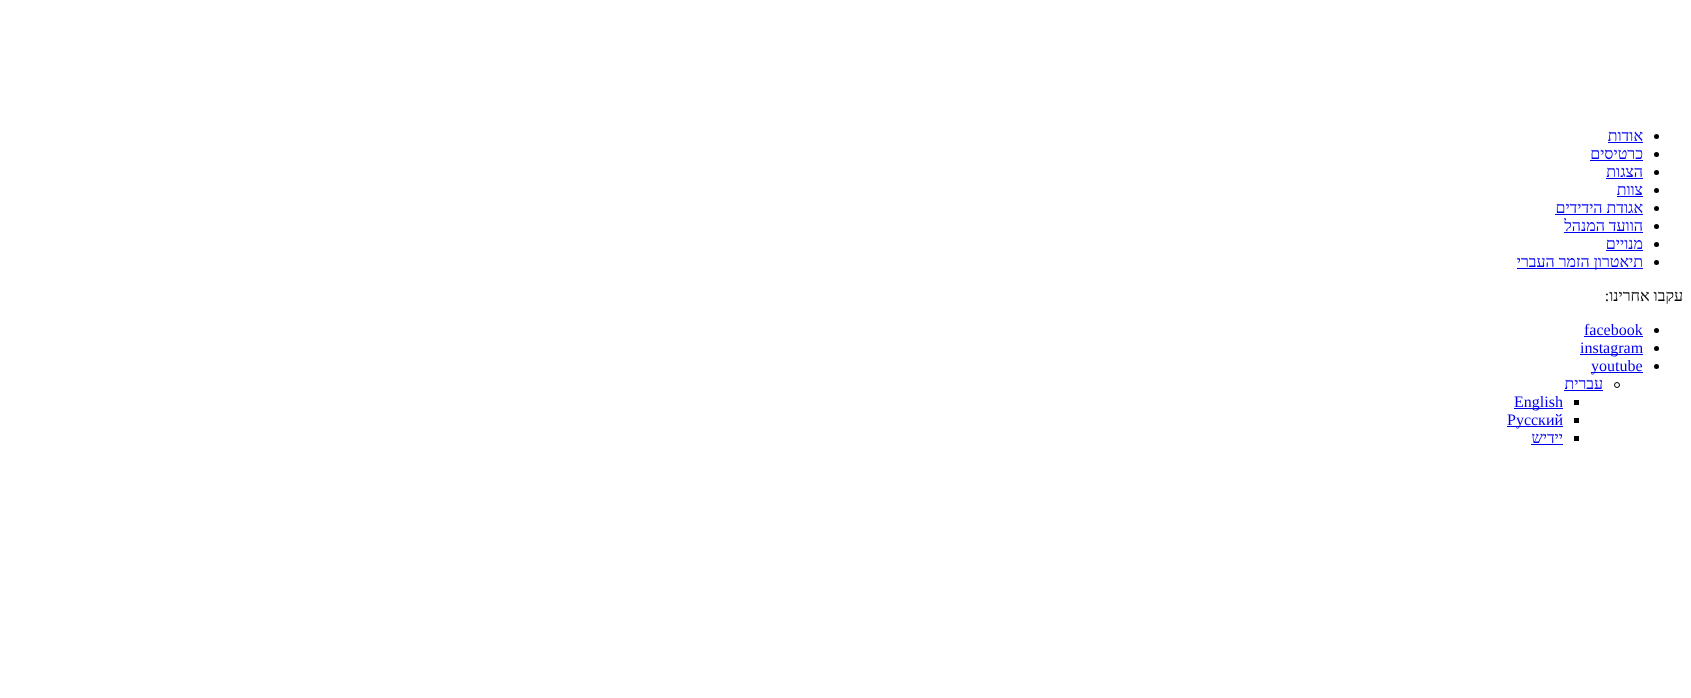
<svg xmlns="http://www.w3.org/2000/svg" width="1691" height="698">
<style>
.a{font:16px Liberation Serif;direction:rtl;fill:#00e}
.b{font:16px Liberation Serif;direction:rtl;fill:#000}
.c{font:16px Liberation Serif;fill:#00e}
</style>
<rect width="100%" height="100%" fill="#fff"/>
<circle fill="#000" cx="1656.5" cy="136.5" r="2.5"/>
<path fill="#00e" d="M1608 142h35v1H1608z"/>
<circle fill="#000" cx="1656.5" cy="154.5" r="2.5"/>
<path fill="#00e" d="M1590 160h53v1H1590z"/>
<circle fill="#000" cx="1656.5" cy="172.5" r="2.5"/>
<path fill="#00e" d="M1606 178h37v1H1606z"/>
<circle fill="#000" cx="1656.5" cy="190.5" r="2.5"/>
<path fill="#00e" d="M1617 196h26v1H1617z"/>
<circle fill="#000" cx="1656.5" cy="208.5" r="2.5"/>
<path fill="#00e" d="M1555 214h88v1H1555z"/>
<circle fill="#000" cx="1656.5" cy="226.5" r="2.5"/>
<path fill="#00e" d="M1564 232h79v1H1564z"/>
<circle fill="#000" cx="1656.5" cy="244.5" r="2.5"/>
<path fill="#00e" d="M1606 250h37v1H1606z"/>
<circle fill="#000" cx="1656.5" cy="262.5" r="2.5"/>
<path fill="#00e" d="M1517 268h126v1H1517z"/>
<circle fill="#000" cx="1656.5" cy="330.5" r="2.5"/>
<path fill="#00e" d="M1584 336h59v1H1584z"/>
<circle fill="#000" cx="1656.5" cy="348.5" r="2.5"/>
<path fill="#00e" d="M1580 354h63v1H1580z"/>
<circle fill="#000" cx="1656.5" cy="366.5" r="2.5"/>
<path fill="#00e" d="M1591 372h52v1H1591z"/>
<circle fill="none" stroke="#000" cx="1617" cy="385" r="2.5"/>
<path fill="#00e" d="M1564 390h39v1H1564z"/>
<path fill="#000" d="M1574 400h5v5H1574z"/>
<path fill="#00e" d="M1514 408h49v1H1514z"/>
<path fill="#000" d="M1574 418h5v5H1574z"/>
<path fill="#00e" d="M1507 426h56v1H1507z"/>
<path fill="#000" d="M1574 436h5v5H1574z"/>
<path fill="#00e" d="M1531 444h32v1H1531z"/>
<text class="a" x="1643" y="141">אודות</text>
<text class="a" x="1643" y="159">כרטיסים</text>
<text class="a" x="1643" y="177">הצגות</text>
<text class="a" x="1643" y="195">צוות</text>
<text class="a" x="1643" y="213">אגודת הידידים</text>
<text class="a" x="1643" y="231">הוועד המנהל</text>
<text class="a" x="1643" y="249">מנויים</text>
<text class="a" x="1643" y="267">תיאטרון הזמר העברי</text>
<text class="b" x="1683" y="301">עקבו אחרינו:</text>
<text class="c" x="1584" y="335">facebook</text>
<text class="c" x="1580" y="353">instagram</text>
<text class="c" x="1591" y="371">youtube</text>
<text class="a" x="1603" y="389">עברית</text>
<text class="c" x="1514" y="407">English</text>
<text class="c" x="1507" y="425">Русский</text>
<text class="a" x="1563" y="443">יידיש</text>
</svg>
